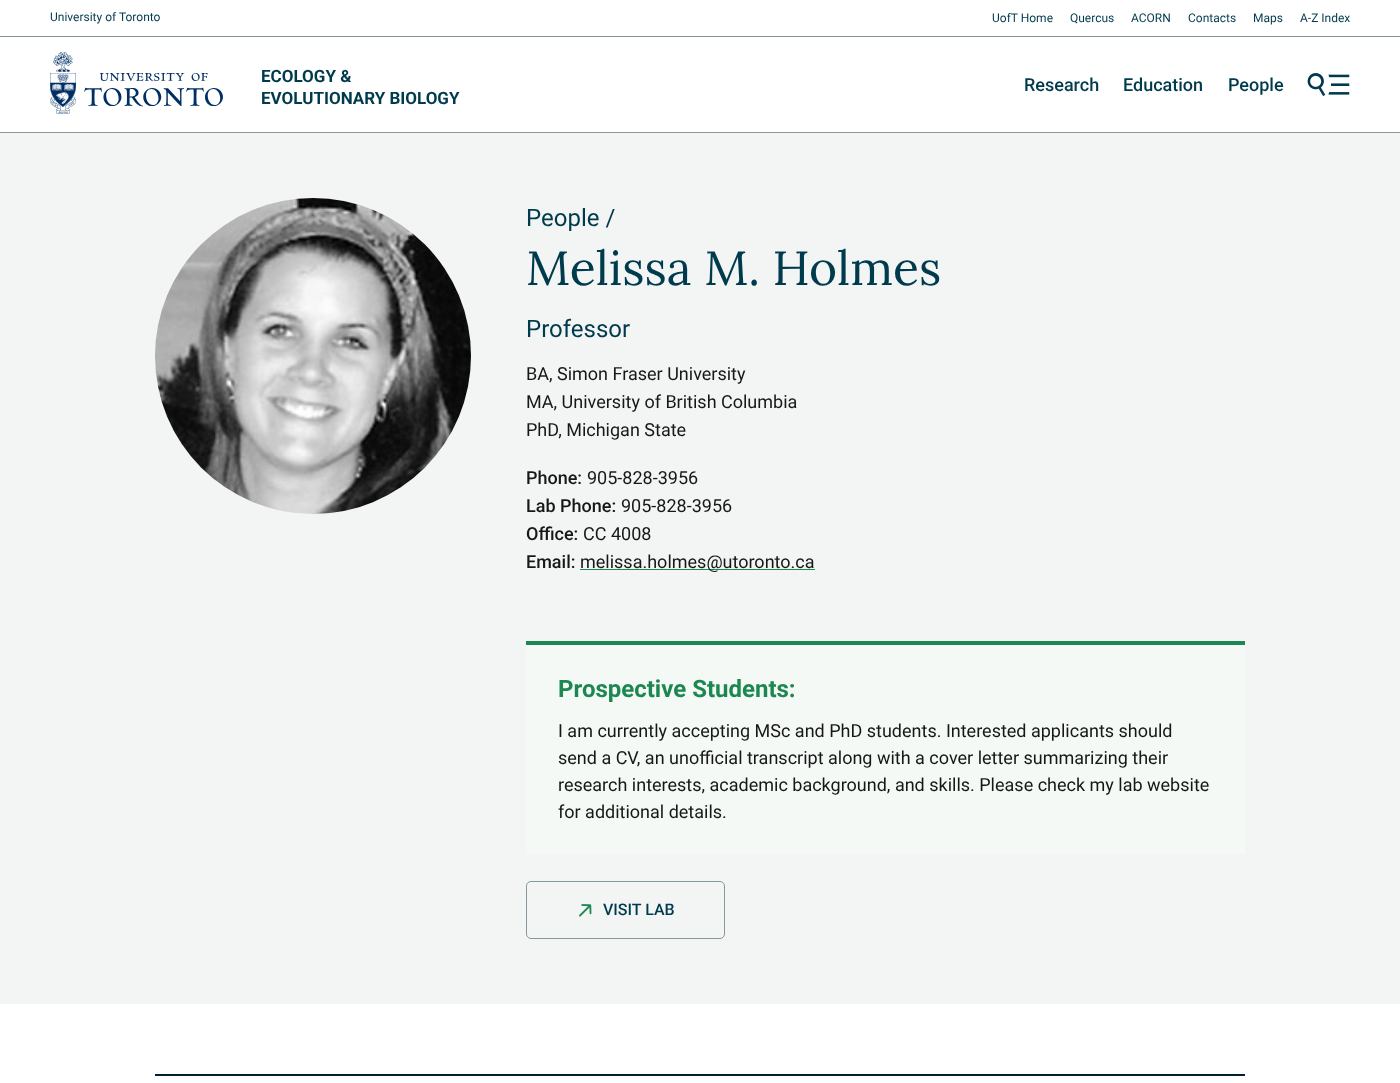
<svg xmlns="http://www.w3.org/2000/svg" width="1400" height="1083">
<style>
.a{font:12px Roboto;fill:#003b4d}
.b{font:bold 17px Roboto;fill:#003b4d}
.c{font:500 18px Roboto;fill:#003b4d}
.d{font:24px Roboto;fill:#003b4d}
.e{font:48px Lora;fill:#003b4d}
.f{font:18px Roboto;fill:#171717}
.g{font:500 18px Roboto;fill:#171717}
.h{font:bold 24px Roboto;fill:#1d8751}
.i{font:500 16px Roboto;fill:#003b4d}
</style>
<rect width="100%" height="100%" fill="#fff"/>
<path fill="#85989e" d="M0 36h1400v1H0z"/>
<path fill="#85989e" d="M0 132h1400v1H0z"/>
<image href="1.png" x="50" y="52" width="173" height="62"/>
<image href="2.png" x="1307" y="73" width="43" height="23"/>
<path fill="#f3f5f5" d="M0 133h1400v871H0z"/>
<image href="3.png" x="155" y="198" width="316" height="316"/>
<path fill="#1d8751" d="M580 569h235v1H580z"/>
<path fill="#f4f9f6" d="M526 645h719v209H526z"/>
<path fill="#1d8751" d="M526 641h719v4H526z"/>
<rect fill="none" stroke="#85989e" x="526.5" y="881.5" width="198" height="57" rx="4.5"/>
<image href="4.png" x="579" y="904" width="13" height="13"/>
<path fill="#00212f" d="M155 1074h1090v2H155z"/>
<text class="a" x="50" y="21">University of Toronto</text>
<text class="a" x="992" y="22">UofT Home</text>
<text class="a" x="1070" y="22">Quercus</text>
<text class="a" x="1131" y="22">ACORN</text>
<text class="a" x="1188" y="22">Contacts</text>
<text class="a" x="1253" y="22">Maps</text>
<text class="a" x="1300" y="22">A-Z Index</text>
<text class="b" x="261" y="82">ECOLOGY &amp;</text>
<text class="b" x="261" y="104">EVOLUTIONARY BIOLOGY</text>
<text class="c" x="1024" y="91">Research</text>
<text class="c" x="1123" y="91">Education</text>
<text class="c" x="1228" y="91">People</text>
<text class="d" x="526" y="226">People /</text>
<text class="e" x="526" y="285">Melissa M. Holmes</text>
<text class="d" x="526" y="337">Professor</text>
<text class="f" x="526" y="380">BA, Simon Fraser University</text>
<text class="f" x="526" y="408">MA, University of British Columbia</text>
<text class="f" x="526" y="436">PhD, Michigan State</text>
<text class="g" x="526" y="484">Phone:</text>
<text class="f" x="587" y="484">905-828-3956</text>
<text class="g" x="526" y="512">Lab Phone:</text>
<text class="f" x="621" y="512">905-828-3956</text>
<text class="g" x="526" y="540">Office:</text>
<text class="f" x="583" y="540">CC 4008</text>
<text class="g" x="526" y="568">Email:</text>
<text class="f" x="580" y="568">melissa.holmes@utoronto.ca</text>
<text class="h" x="558" y="697">Prospective Students:</text>
<text class="f" x="558" y="737">I am currently accepting MSc and PhD students. Interested applicants should</text>
<text class="f" x="558" y="764">send a CV, an unofficial transcript along with a cover letter summarizing their</text>
<text class="f" x="558" y="791">research interests, academic background, and skills. Please check my lab website</text>
<text class="f" x="558" y="818">for additional details.</text>
<text class="i" x="603" y="915">VISIT LAB</text>
</svg>
